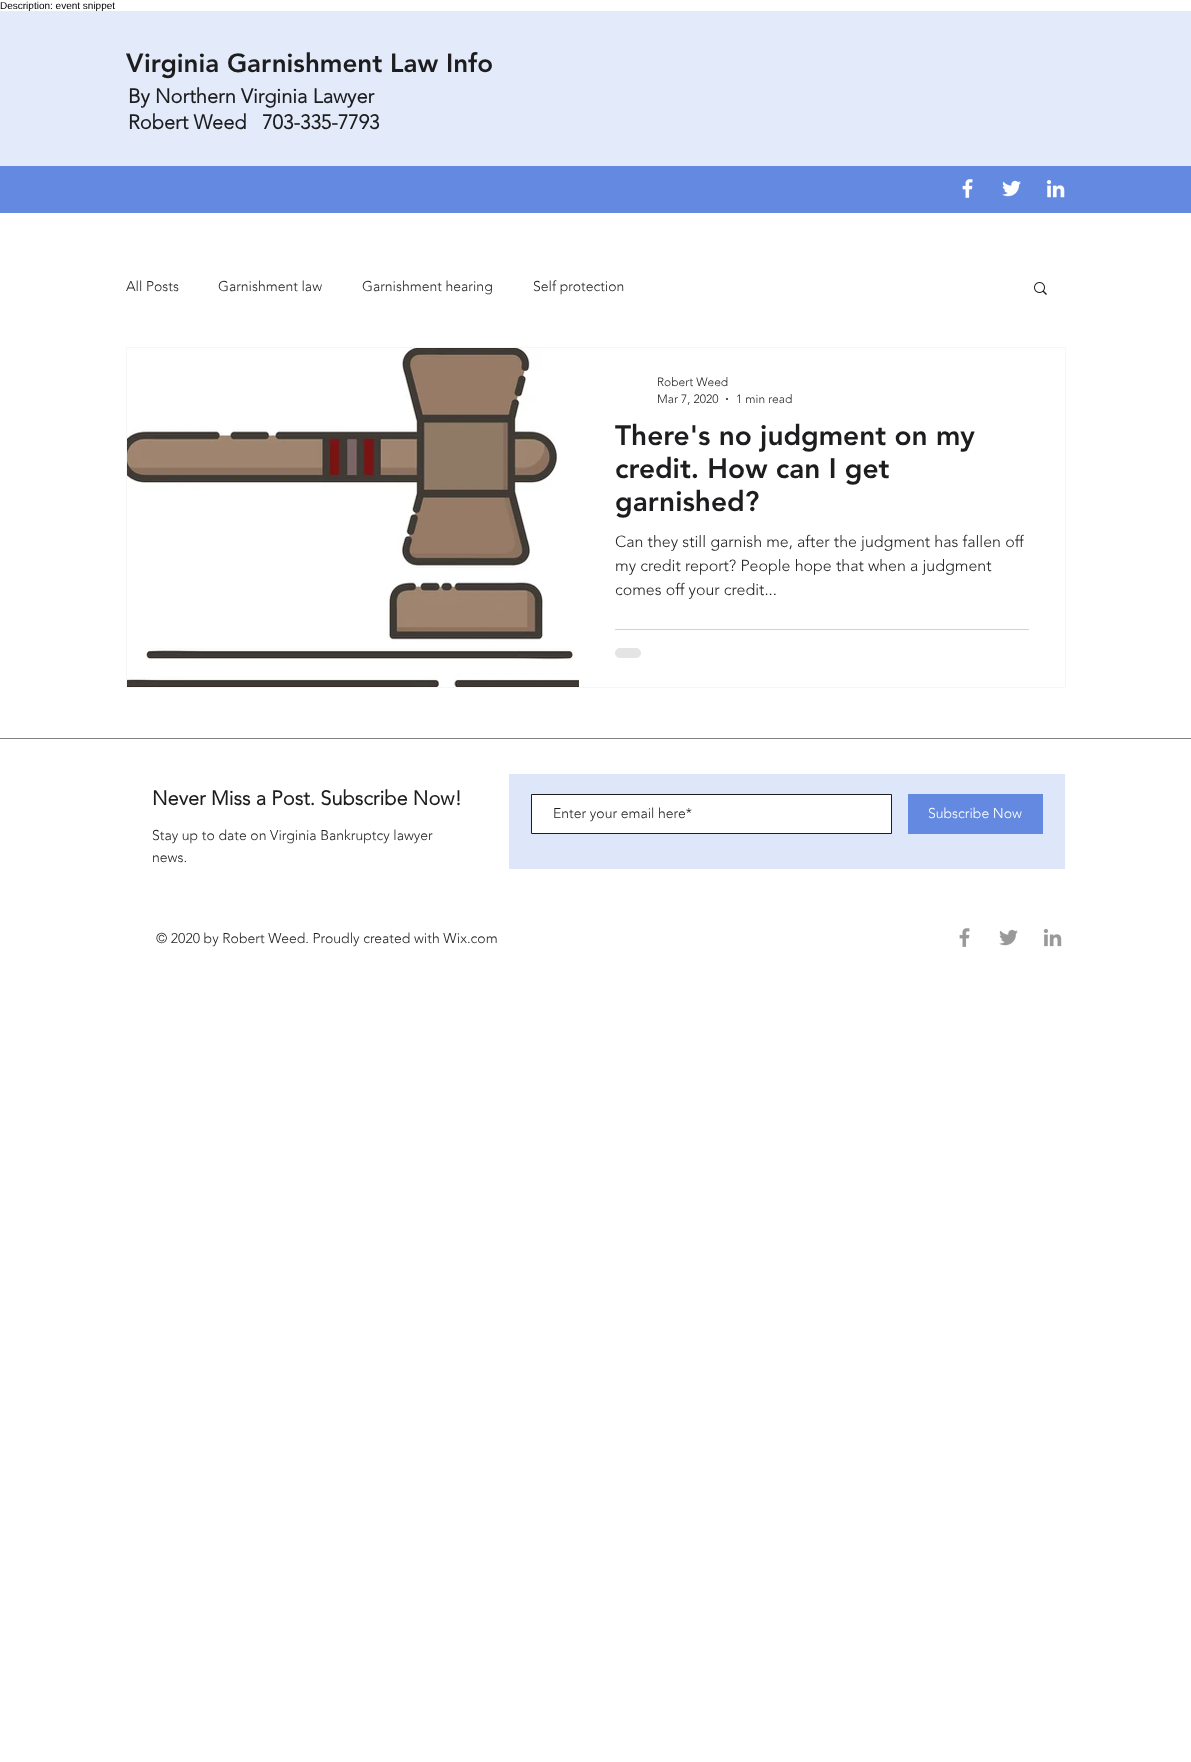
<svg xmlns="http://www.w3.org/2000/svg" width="1191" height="1762">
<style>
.a{font:10px Liberation Sans;fill:#000}
.b{font:900 26px 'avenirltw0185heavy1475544';letter-spacing:1px;fill:#1d1d1f}
.c{font:900 26px 'avenirltw0185heavy1475544';fill:#1d1d1f}
.d{font:bold 20px 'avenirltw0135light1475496';fill:#1d1d1f}
.e{font:300 14px 'avenirltw0135light1475496';fill:#1d1d1f}
.f{font:300 12px 'avenirltw0135light1475496';fill:#1d1d1f}
.g{font:900 28px 'avenirltw0185heavy1475544';fill:#1d1d1f}
.h{font:300 16px 'avenirltw0135light1475496';fill:#1d1d1f}
.i{font:300 14px 'avenirltw0135light1475496';fill:#fff}
</style>
<defs>
<clipPath id="clip1"><path d="M615 419h414v99H615z"/></clipPath>
</defs>
<rect width="100%" height="100%" fill="#fff"/>
<path fill="#6389e1" d="M0 166h1191v47H0z"/>
<image href="1.png" x="962" y="179" width="11" height="19"/>
<image href="2.png" x="1002" y="180" width="19" height="17"/>
<image href="3.png" x="1046" y="179" width="19" height="19"/>
<image href="4.png" x="1034" y="282" width="13" height="13"/>
<path fill="none" stroke="#f6f6f6" d="M126.5 347.5h939v340H126.5z"/>
<image href="5.png" x="127" y="348" width="452" height="339"/>
<circle fill="#1d1d1f" cx="727" cy="399" r="1"/>
<path fill="#d2d2d2" d="M615 629h414v1H615z"/>
<rect fill="#e4e4e4" x="615" y="648" width="26" height="10" rx="5"/>
<path fill="#808082" d="M0 738h1191v1H0z"/>
<path fill="#dee6f9" d="M509 774h556v95H509z"/>
<path fill="#fff" stroke="#1d1d1f" d="M531.5 794.5h360v39H531.5z"/>
<path fill="#6389e1" d="M908 794h135v40H908z"/>
<image href="6.png" x="959" y="928" width="11" height="19"/>
<image href="7.png" x="999" y="929" width="19" height="17"/>
<image href="8.png" x="1043" y="928" width="19" height="19"/>
<text class="a" x="0" y="9">Description: event snippet</text>
<path fill="#e3eafa" d="M0 11h1191v155H0z"/>
<text class="b" x="126" y="72">V</text>
<text class="c" x="144" y="72">irginia Garnishment Law Info</text>
<text class="d" x="128" y="103">By Northern Virginia Lawyer</text>
<text class="d" xml:space="preserve" x="128" y="129">Robert Weed   703-335-7793</text>
<text class="e" x="126" y="291">All Posts</text>
<text class="e" x="218" y="291">Garnishment law</text>
<text class="e" x="362" y="291">Garnishment hearing</text>
<text class="e" x="533" y="291">Self protection</text>
<text class="f" x="657" y="386">Robert Weed</text>
<text class="f" x="657" y="403">Mar 7, 2020</text>
<text class="f" x="736" y="403">1 min read</text>
<g clip-path="url(#clip1)">
<text class="g" x="615" y="445">There's no judgment on my</text>
</g>
<text class="g" x="615" y="478">credit. How can I get</text>
<text class="g" x="615" y="511">garnished?</text>
<text class="h" x="615" y="547">Can they still garnish me, after the judgment has fallen off</text>
<text class="h" x="615" y="571">my credit report? People hope that when a judgment</text>
<text class="h" x="615" y="595">comes off your credit...</text>
<text class="d" x="152" y="805">Never Miss a Post. Subscribe Now!</text>
<text class="e" x="553" y="818">Enter your email here*</text>
<text class="i" x="928" y="818">Subscribe Now</text>
<text class="e" x="152" y="840">Stay up to date on Virginia Bankruptcy lawyer</text>
<text class="e" x="152" y="862">news.</text>
<text class="e" x="156" y="943">© 2020 by Robert Weed. Proudly created with Wix.com</text>
</svg>
